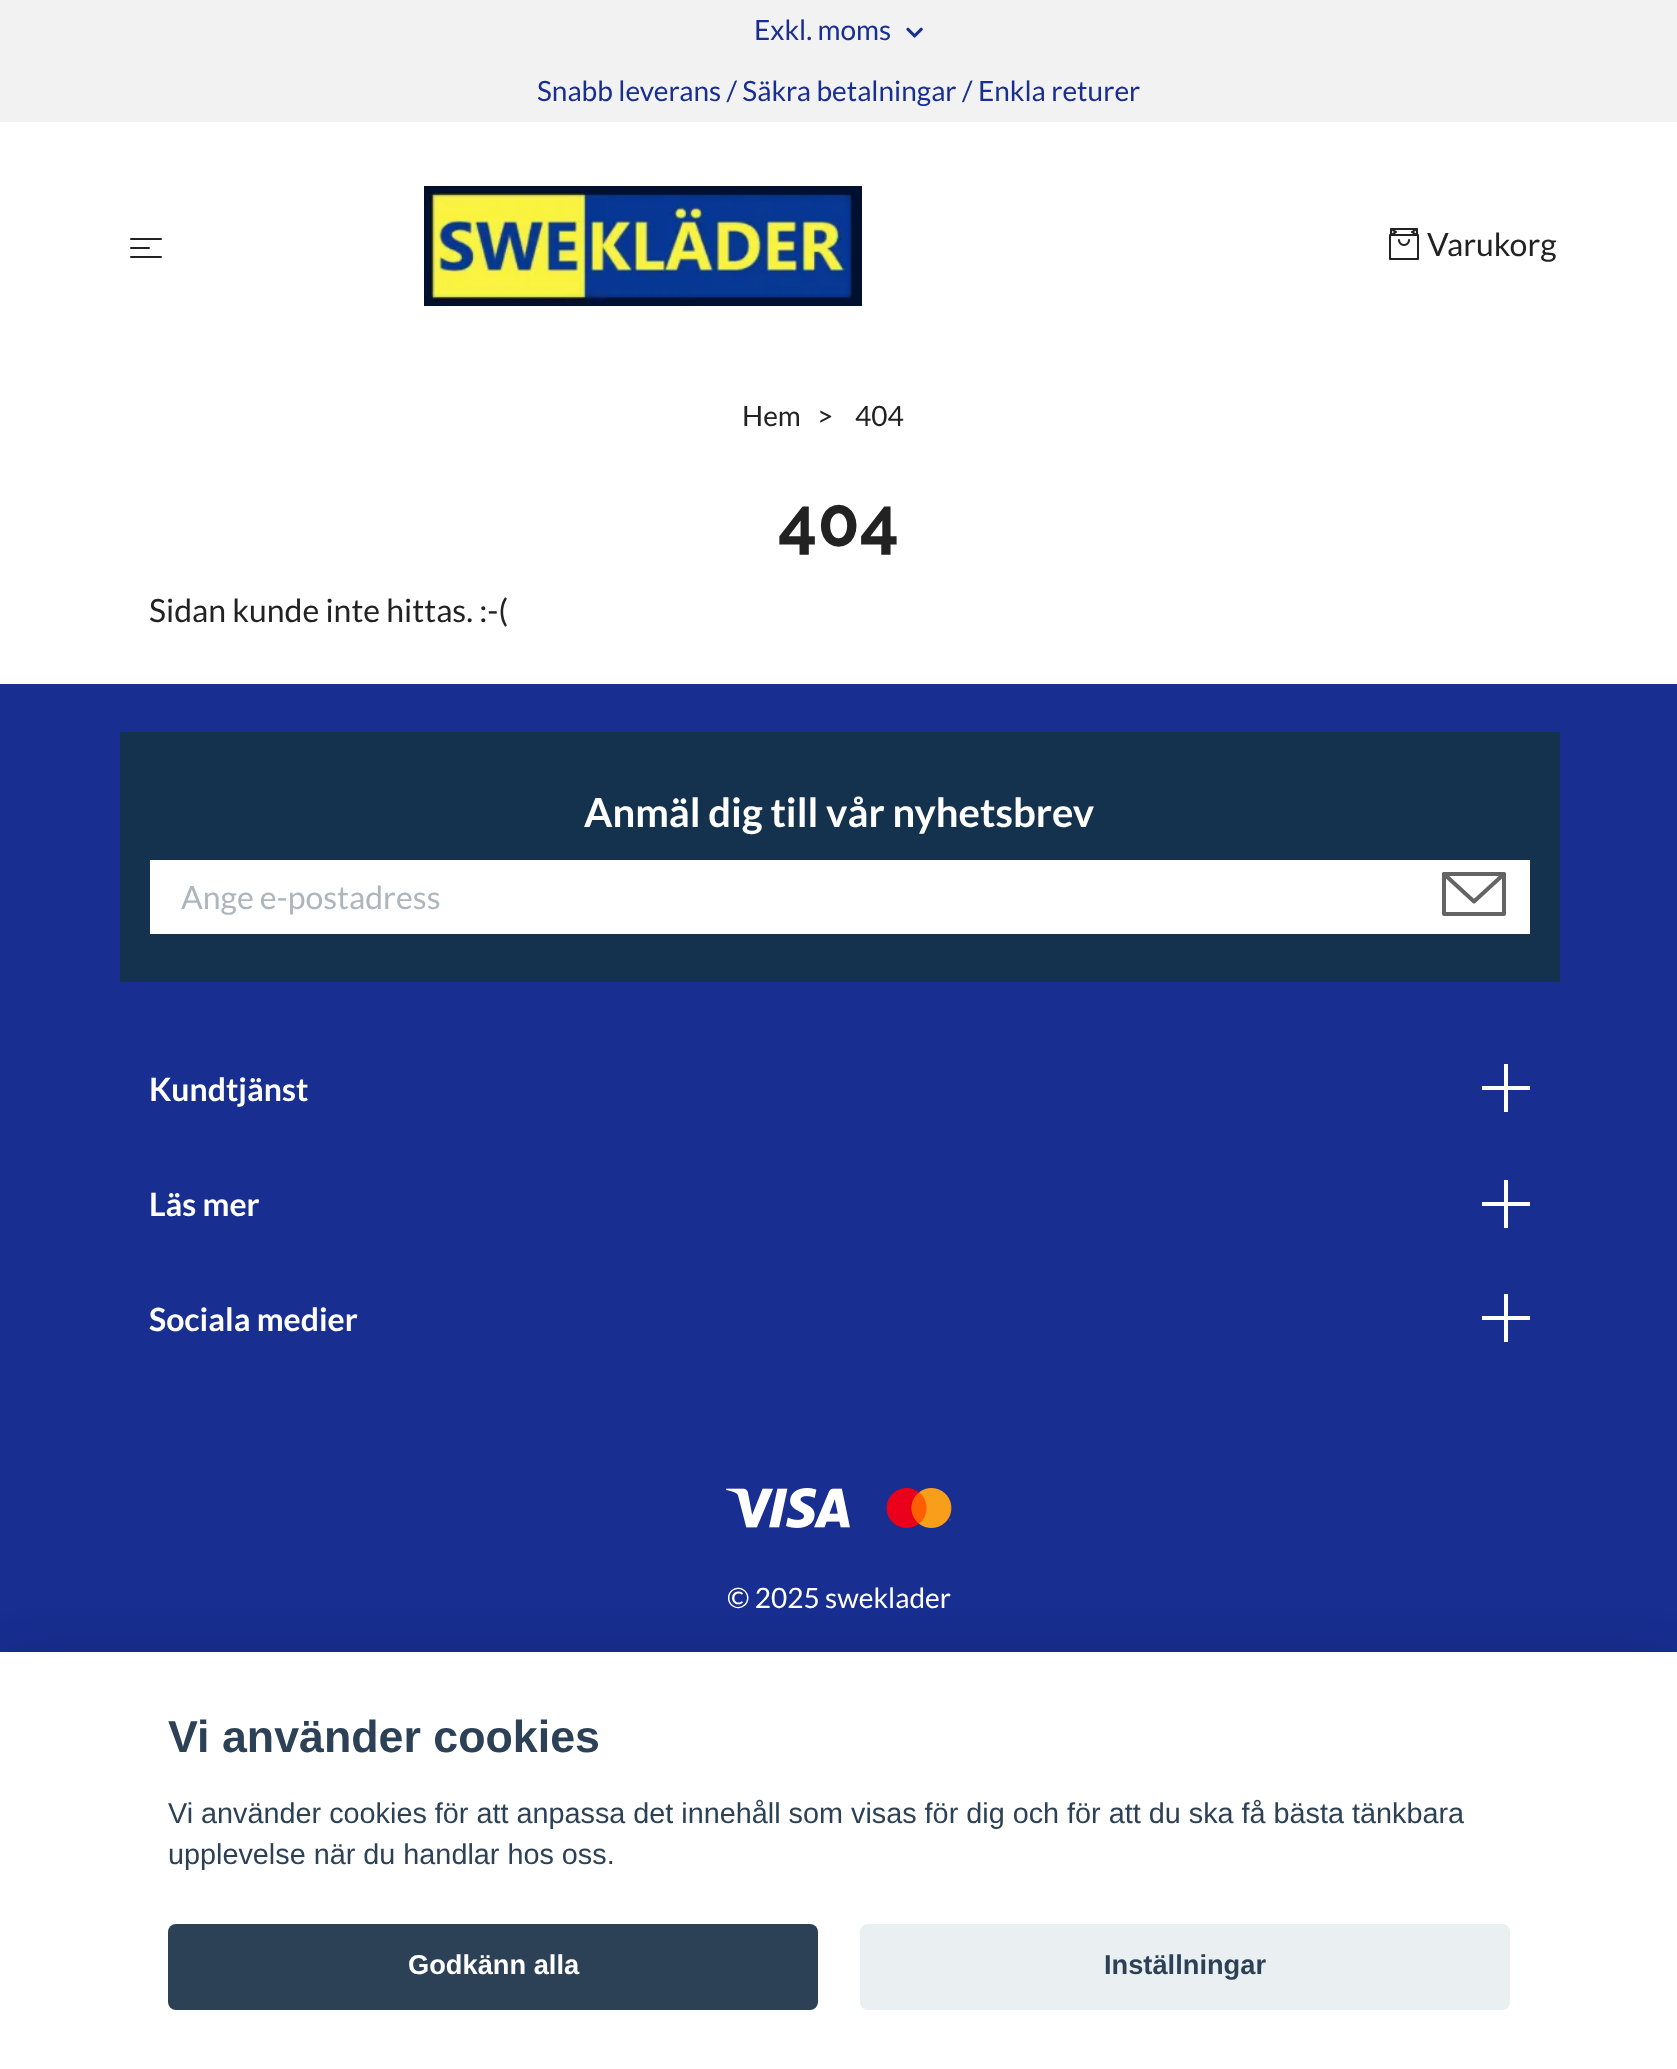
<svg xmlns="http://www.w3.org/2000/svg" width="1677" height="2069">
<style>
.a{font:28px Lato;fill:#182e90}
.b{font:32px Lato;fill:#222}
.c{font:28px Lato;fill:#222}
.d{font:bold 69px Raleway;fill:#222}
.e{font:bold 40px Lato;fill:#fff}
.f{font:32px Lato;fill:#adb5bd}
.g{font:bold 32px Lato;fill:#fff}
.h{font:28px Lato;fill:#fff}
.i{font:bold 44.75px Liberation Sans;fill:#2d4156}
.j{font:28.8px Liberation Sans;fill:#2d4156}
.k{font:bold 27.25px Liberation Sans;fill:#fff}
.l{font:bold 27.25px Liberation Sans;fill:#2d4156}
</style>
<rect width="100%" height="100%" fill="#fff"/>
<path fill="#f2f2f2" d="M0 0h1677v122H0z"/>
<image href="1.png" x="906" y="27" width="17" height="11"/>
<path fill="none" stroke="#222" stroke-width="2" stroke-linecap="round" stroke-linejoin="round" d="M131 239h30m-30 9h18m-18 9h30"/>
<image href="2.png" x="424" y="186" width="438" height="120"/>
<image href="3.png" x="1389" y="228" width="30" height="32"/>
<path fill="#182e90" d="M0 684h1677v968H0z"/>
<path fill="#14324d" d="M120 732h1440v250H120z"/>
<path fill="#fff" d="M150 860h1380v74H150z"/>
<path fill="none" stroke="#646464" stroke-width="4" stroke-linecap="round" stroke-linejoin="round" d="M1444 874l30 27.5l30-27.5"/>
<path fill="none" stroke="#646464" stroke-width="4" stroke-linecap="round" stroke-linejoin="round" d="M1444 874h60v40h-60z"/>
<path fill="#fffffa" d="M1504 1064h4v48H1504z"/>
<path fill="#fffffa" d="M1482 1086h48v4H1482z"/>
<path fill="#fffffa" d="M1504 1180h4v48H1504z"/>
<path fill="#fffffa" d="M1482 1202h48v4H1482z"/>
<path fill="#fffffa" d="M1504 1294h4v48H1504z"/>
<path fill="#fffffa" d="M1482 1316h48v4H1482z"/>
<image href="4.png" x="726" y="1488" width="124" height="40"/>
<image href="5.png" x="886" y="1488" width="66" height="40"/>
<path fill="#02020347" filter="blur(30px)" d="M0 1672h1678v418H0z"/>
<path fill="#fff" d="M0 1652h1677v417H0z"/>
<rect fill="#2d4156" x="168" y="1924" width="650" height="86" rx="8"/>
<rect fill="#eaeff2" x="860" y="1924" width="650" height="86" rx="8"/>
<text class="a" x="754" y="40">Exkl. moms</text>
<text class="a" x="537" y="101">Snabb leverans / Säkra betalningar / Enkla returer</text>
<text class="b" x="1427" y="256">Varukorg</text>
<text class="c" x="742" y="426">Hem</text>
<text class="c" x="817" y="426">&gt;</text>
<text class="c" x="855" y="426">404</text>
<text class="d" x="778" y="546">404</text>
<text class="b" x="149" y="622">Sidan kunde inte hittas. :-(</text>
<text class="e" x="584" y="827">Anmäl dig till vår nyhetsbrev</text>
<text class="f" x="181" y="909">Ange e-postadress</text>
<text class="g" x="149" y="1101">Kundtjänst</text>
<text class="g" x="149" y="1216">Läs mer</text>
<text class="g" x="149" y="1331">Sociala medier</text>
<text class="h" x="727" y="1608">© 2025 sweklader</text>
<text class="i" x="168" y="1752">Vi använder cookies</text>
<text class="j" x="168" y="1823">Vi använder cookies för att anpassa det innehåll som visas för dig och för att du ska få bästa tänkbara</text>
<text class="j" x="168" y="1864">upplevelse när du handlar hos oss.</text>
<text class="k" x="408" y="1974">Godkänn alla</text>
<text class="l" x="1104" y="1974">Inställningar</text>
</svg>
